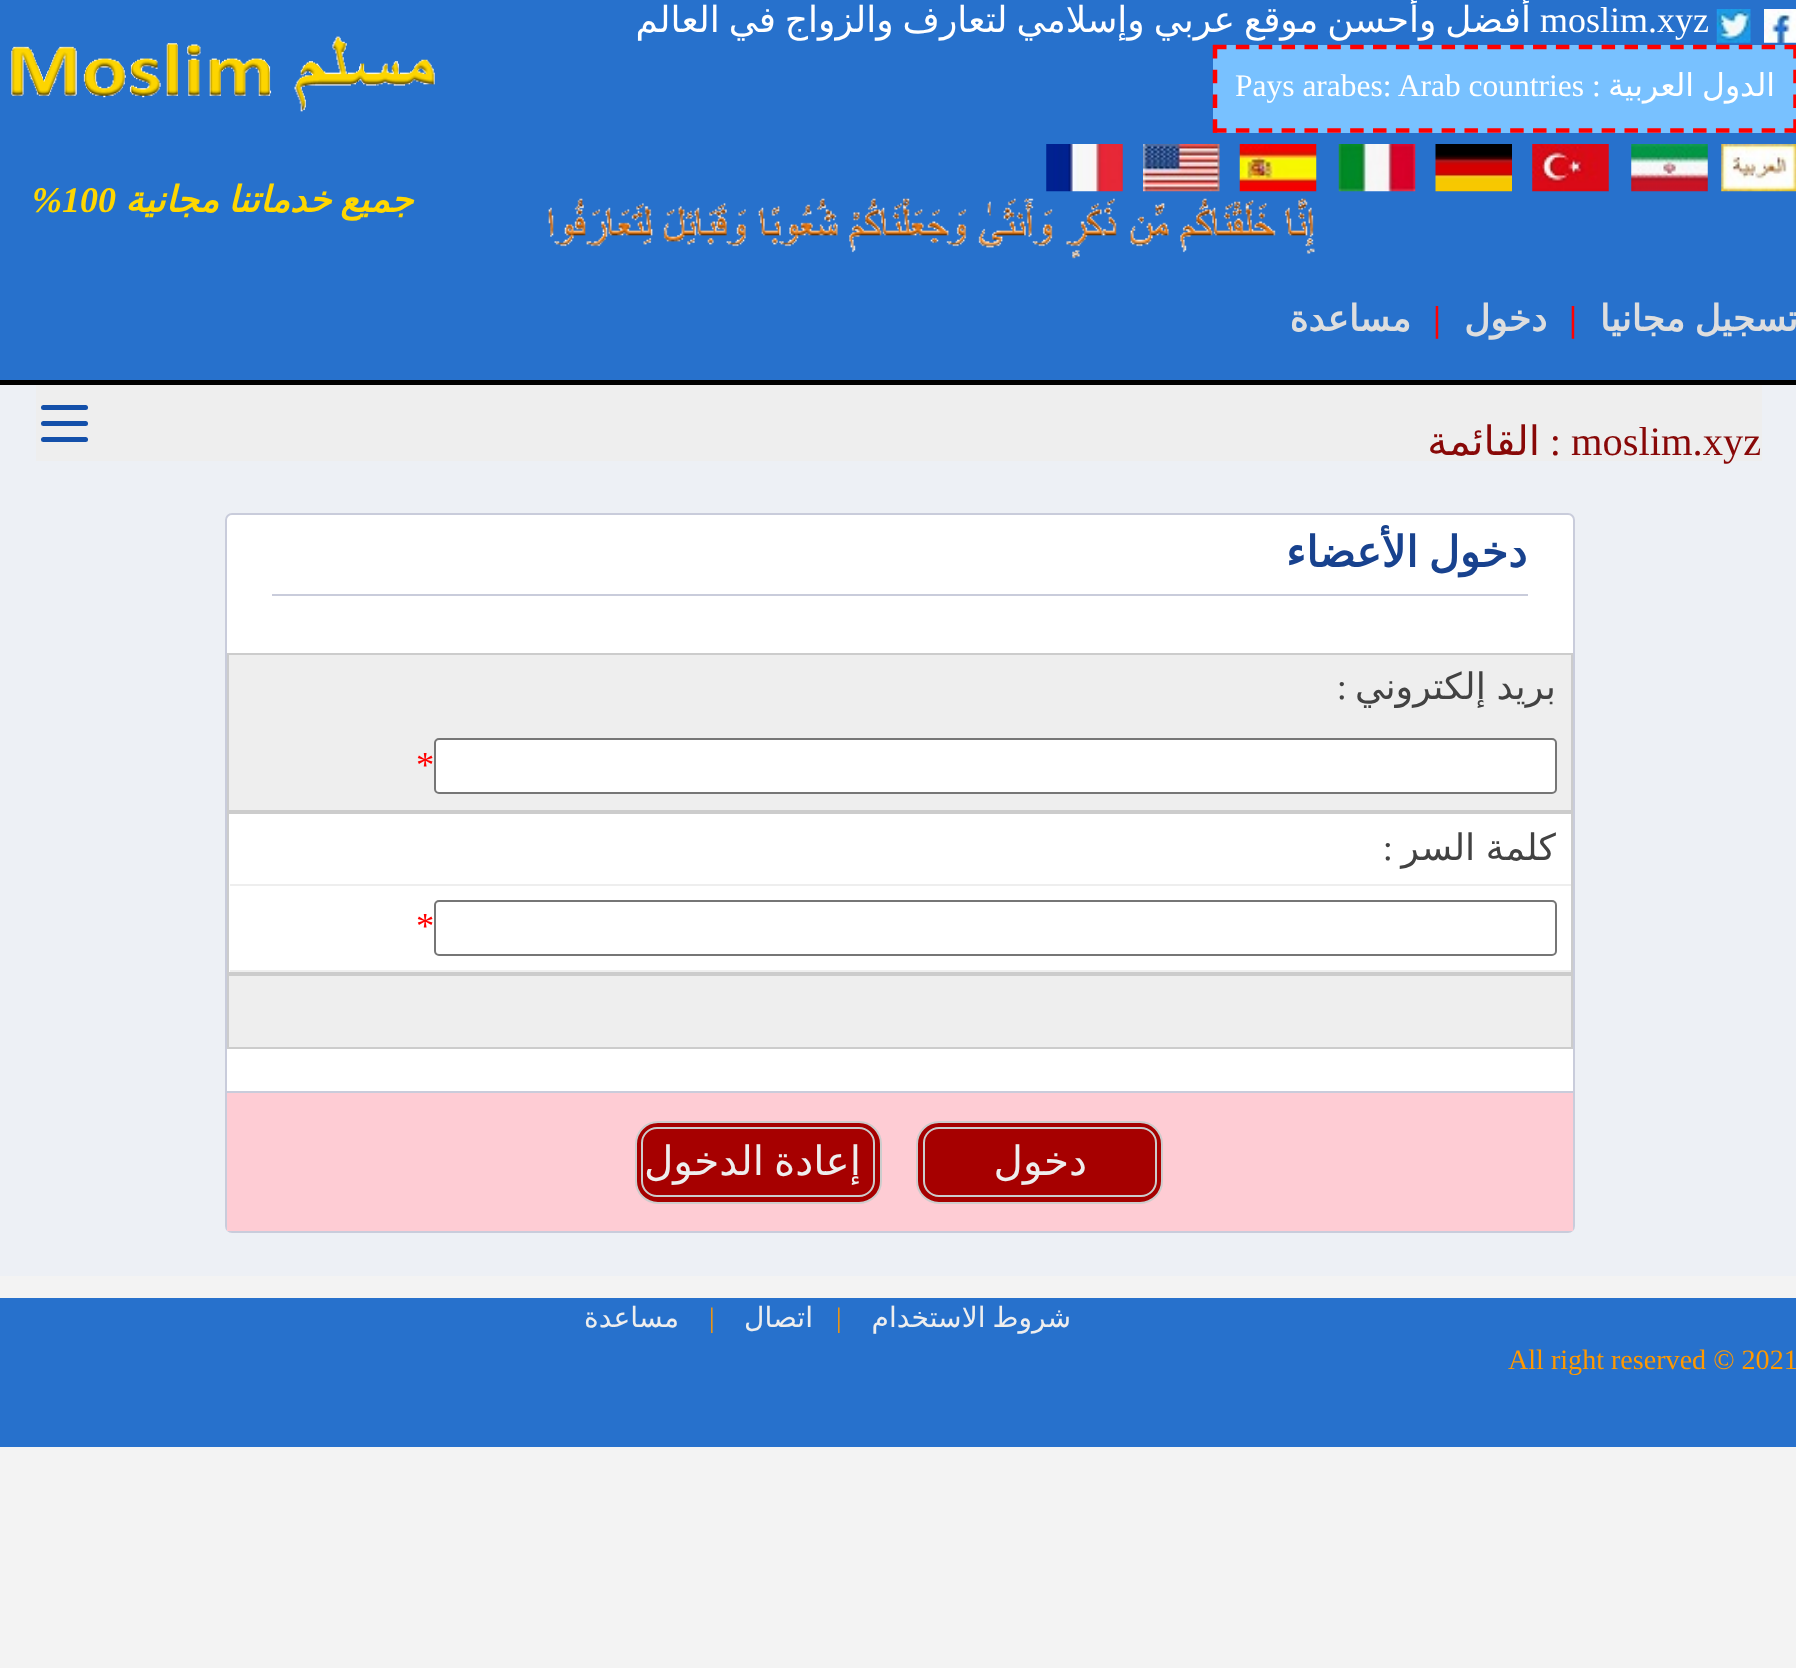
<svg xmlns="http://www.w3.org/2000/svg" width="1796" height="1668">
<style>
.a{font:36px DejaVu Sans;direction:rtl;fill:#fff}
.b{font:36px Liberation Serif;fill:#fff}
.c{font:31.5px DejaVu Sans;direction:rtl;fill:#fff}
.d{font:31.5px Liberation Serif;fill:#fff}
.e{font:bold 36px DejaVu Sans;direction:rtl;fill:#dedede}
.f{font:bold 36px Liberation Serif;fill:#f00}
.g{font:italic bold 36px DejaVu Sans;direction:rtl;fill:#ffd700}
.h{font:italic bold 36px Liberation Serif;fill:#ffd700}
.i{font:40.5px Liberation Serif;fill:#880807}
.j{font:40.5px Liberation Serif;direction:rtl;fill:#880807}
.k{font:40.5px DejaVu Sans;direction:rtl;fill:#880807}
.l{font:bold 42.75px DejaVu Sans;direction:rtl;fill:#18428e}
.m{font:36.5px DejaVu Sans;direction:rtl;fill:#424242}
.n{font:36.5px Liberation Serif;direction:rtl;fill:#424242}
.o{font:36.5px Liberation Serif;fill:#f00}
.p{font:40.5px DejaVu Sans;direction:rtl;fill:#eee}
.q{font:28.1px DejaVu Sans;direction:rtl;fill:#eee}
.r{font:28.1px Liberation Serif;fill:#f90}
</style>
<rect width="100%" height="100%" fill="#f3f3f3"/>
<path fill="#2771cc" d="M0 0h1796v380H0z"/>
<path fill="#000" d="M0 380h1796v5H0z"/>
<image href="1.png" x="1764" y="9" width="32" height="34"/>
<image href="2.png" x="1716" y="9" width="35" height="34"/>
<path fill="#78c1ff" d="M1213 45h583v88H1213z"/>
<path fill="none" stroke="#f00" stroke-width="4.5" stroke-dasharray="13.5 9.36" d="M1213 47h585"/>
<path fill="none" stroke="#f00" stroke-width="4.5" stroke-dasharray="13.5 11.25" d="M1795.5 45v88"/>
<path fill="none" stroke="#f00" stroke-width="4.5" stroke-dasharray="13.5 9.36" d="M1213 130.5h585"/>
<path fill="none" stroke="#f00" stroke-width="4.5" stroke-dasharray="13.5 11.25" d="M1215 45v88"/>
<image href="3.png" x="1721" y="144" width="75" height="48"/>
<image href="4.png" x="1631" y="144" width="77" height="48"/>
<image href="5.png" x="1532" y="144" width="77" height="48"/>
<image href="6.png" x="1435" y="144" width="77" height="48"/>
<image href="7.png" x="1338" y="144" width="78" height="48"/>
<image href="8.png" x="1239" y="144" width="78" height="48"/>
<image href="9.png" x="1143" y="144" width="77" height="48"/>
<image href="10.png" x="1046" y="144" width="77" height="48"/>
<image href="11.png" x="548" y="198" width="767" height="61"/>
<image href="12.png" x="11" y="36" width="424" height="76"/>
<path fill="#edf0f5" d="M0 385h1796v891H0z"/>
<path fill="#eee" d="M36 385h1726v76H36z"/>
<rect fill="#1450aa" x="41" y="421" width="47" height="5" rx="2.5"/>
<rect fill="#1450aa" x="41" y="405" width="47" height="5" rx="2.5"/>
<rect fill="#1450aa" x="41" y="437" width="47" height="5" rx="2.5"/>
<rect fill="#fff" stroke="#c9ccdb" stroke-width="2" x="226" y="514" width="1348" height="718" rx="6"/>
<path fill="#c9ccdb" d="M272 594h1256v2H272z"/>
<path fill="#eee" stroke="#ccc" stroke-width="2" d="M228 654h1344v157H228z"/>
<rect fill="#fff" stroke="#767676" stroke-width="2" x="435" y="739" width="1121" height="54" rx="4"/>
<path fill="none" stroke="#ccc" stroke-width="2" d="M228 813h1344v160H228z"/>
<path fill="#eee" d="M230 884h1341v2H230z"/>
<path fill="#eee" d="M230 970h1341v2H230z"/>
<rect fill="none" stroke="#767676" stroke-width="2" x="435" y="901" width="1121" height="54" rx="4"/>
<path fill="#eee" stroke="#ccc" stroke-width="2" d="M228 975h1344v73H228z"/>
<path fill="#feccd4" d="M227 1093h1346v138H227z"/>
<path fill="#c9ccdb" d="M227 1091h1346v2H227z"/>
<rect fill="#a60000" stroke="#ccc" stroke-width="2" x="917" y="1122" width="245" height="81" rx="22"/>
<rect fill="none" stroke="#ccc" stroke-width="2" x="924" y="1128" width="232" height="68" rx="15"/>
<rect fill="#a60000" stroke="#ccc" stroke-width="2" x="636" y="1122" width="245" height="81" rx="22"/>
<rect fill="none" stroke="#ccc" stroke-width="2" x="642" y="1128" width="232" height="68" rx="15"/>
<path fill="#2771cc" d="M0 1298h1796v149H0z"/>
<text class="a" x="1531" y="32" word-spacing="-2.5">أفضل وأحسن موقع عربي وإسلامي لتعارف والزواج في العالم</text>
<text class="b" x="1540" y="32">moslim.xyz</text>
<text class="c" x="1775" y="96" word-spacing="-2">الدول العربية</text>
<text class="d" x="1235" y="96">Pays arabes: Arab countries :</text>
<text class="e" x="1798" y="331">تسجيل</text>
<text class="e" x="1685" y="331">مجانيا</text>
<text class="f" x="1569" y="331">|</text>
<text class="e" x="1547" y="331">دخول</text>
<text class="f" x="1433" y="331">|</text>
<text class="e" x="1411" y="331">مساعدة</text>
<text class="g" x="413" y="212" word-spacing="-2.5">جميع خدماتنا مجانية</text>
<text class="h" x="32" y="212">%100</text>
<text class="i" x="1571" y="455">moslim.xyz</text>
<text class="j" x="1561" y="455">:</text>
<text class="k" x="1540" y="455">القائمة</text>
<text class="l" x="1527" y="567" word-spacing="-3">دخول الأعضاء</text>
<text class="m" x="1556" y="699" word-spacing="-1">بريد إلكتروني</text>
<text class="n" x="1347" y="699">:</text>
<text class="o" x="416" y="777">*</text>
<text class="m" x="1556" y="860" word-spacing="-1">كلمة السر</text>
<text class="n" x="1393" y="860">:</text>
<text class="o" x="416" y="938">*</text>
<text class="p" x="1087" y="1175">دخول</text>
<text class="p" x="861" y="1175" word-spacing="-3">إعادة الدخول</text>
<text class="q" x="1071" y="1327" word-spacing="-2">شروط الاستخدام</text>
<text class="r" x="836" y="1327">|</text>
<text class="q" x="813" y="1327">اتصال</text>
<text class="r" x="709" y="1327">|</text>
<text class="q" x="679" y="1327">مساعدة</text>
<text class="r" x="1508" y="1369">All right reserved © 2021</text>
</svg>
